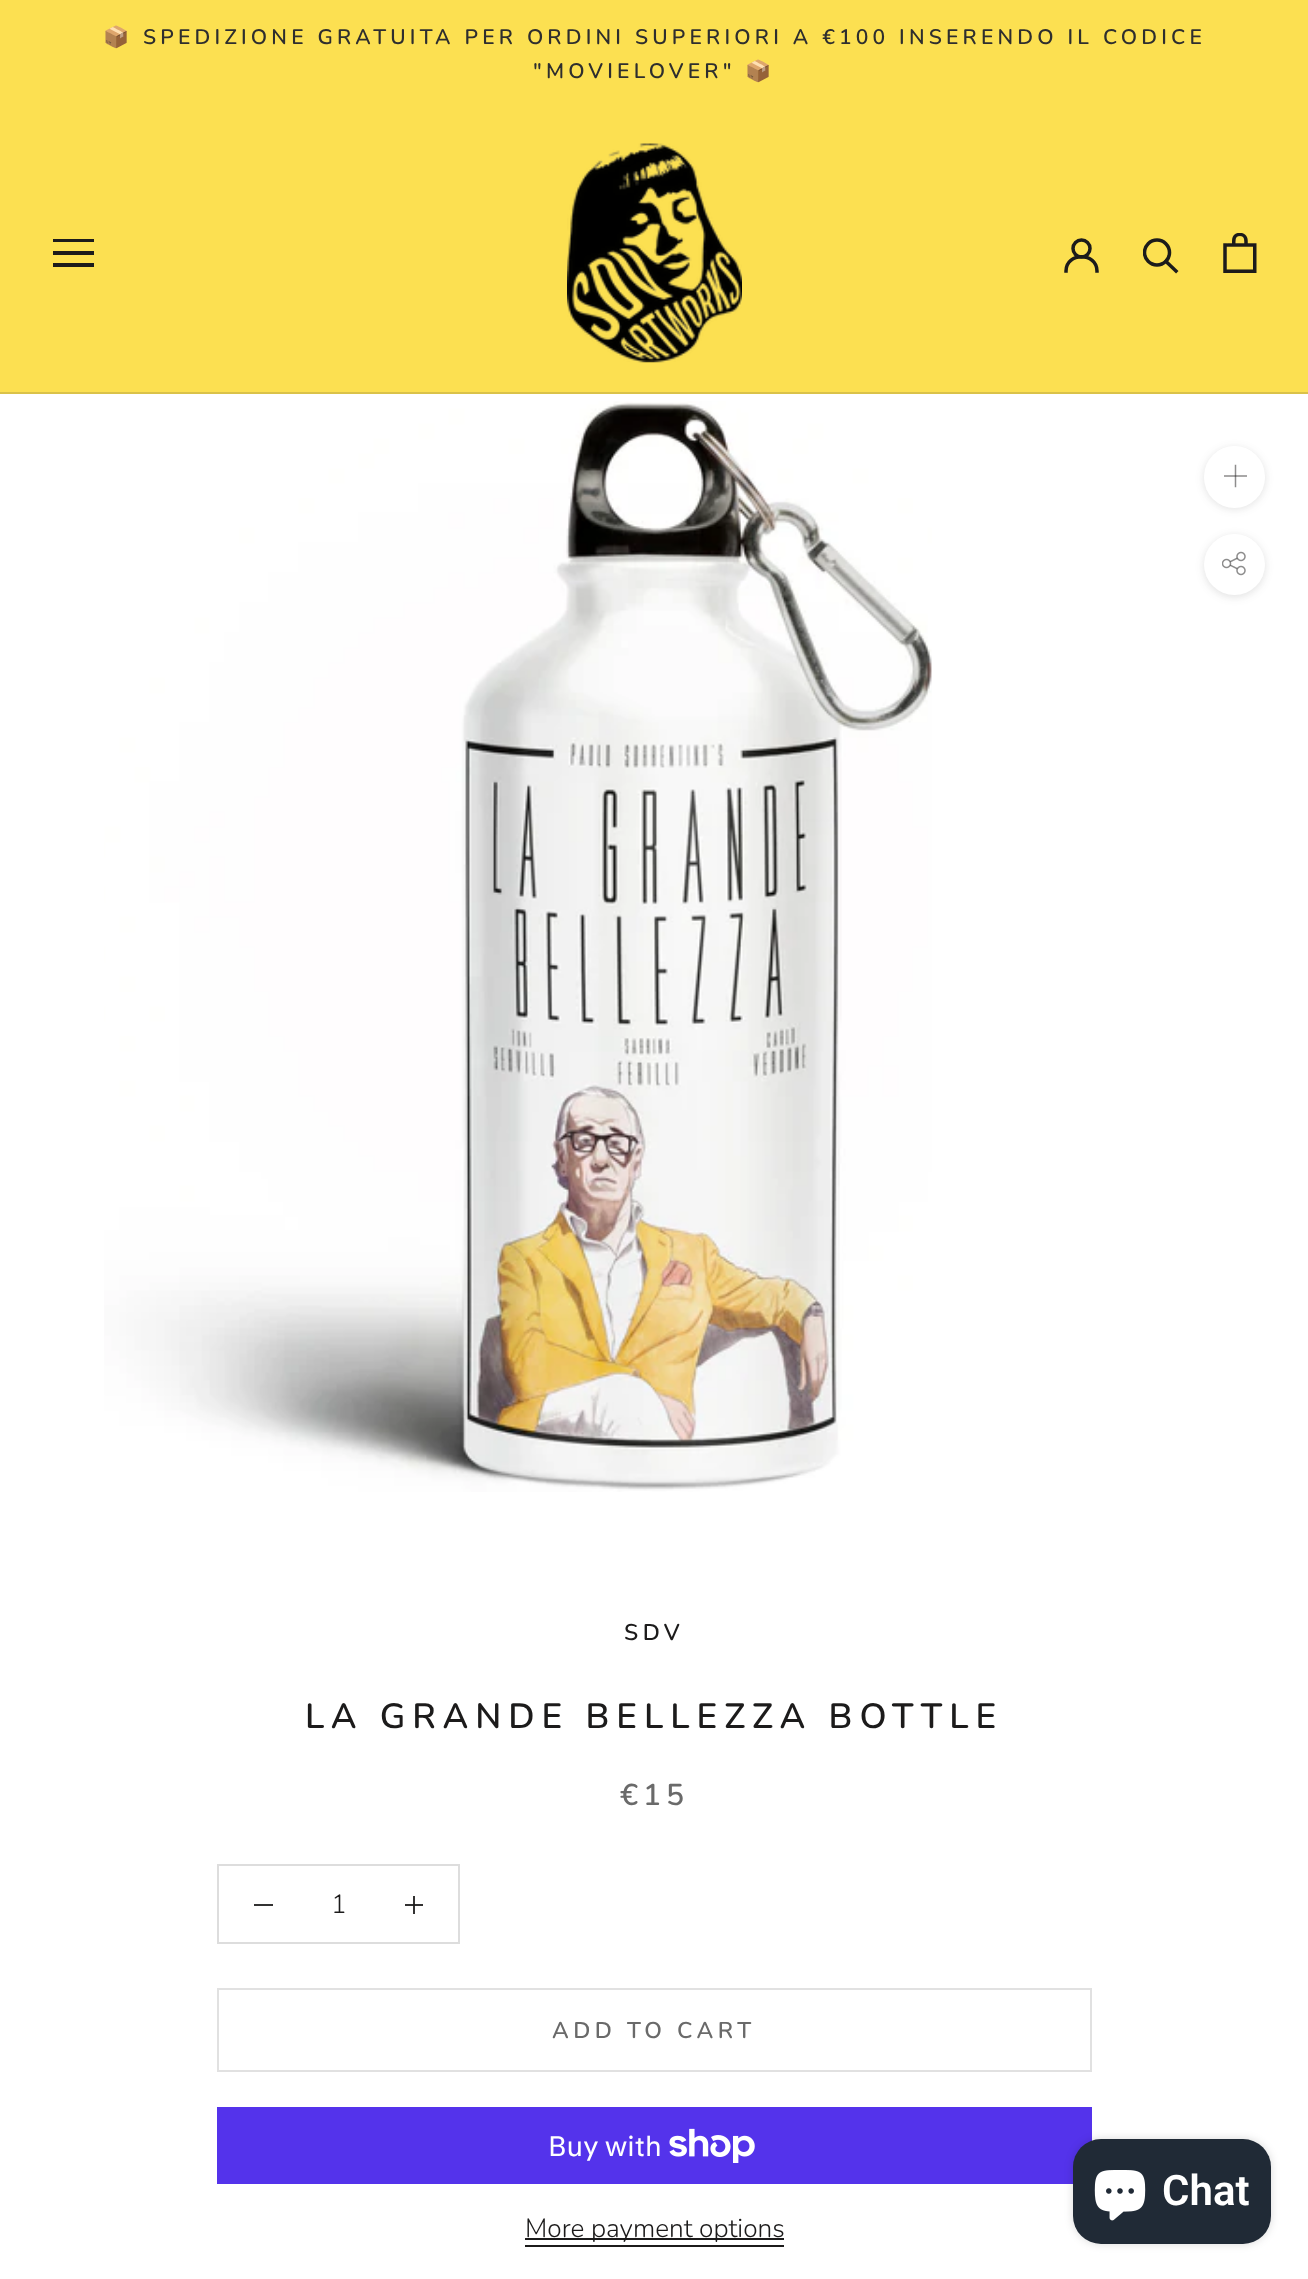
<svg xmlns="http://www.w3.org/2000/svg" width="1308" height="2279">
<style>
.a{font:bold 21px Noto Color Emoji;letter-spacing:4.2px;fill:#2e2e2e}
.b{font:600 21px Nunito;letter-spacing:4.2px;fill:#2e2e2e}
.c{font:600 22.75px Nunito;letter-spacing:4.5px;fill:#1c1b1b}
.d{font:600 35px Nunito;letter-spacing:7px;fill:#1c1b1b}
.e{font:600 30px Nunito;letter-spacing:5px;fill:#6a6a6a}
.f{font:300 26.25px Nunito;fill:#1c1b1b}
.g{font:600 22.75px Nunito;letter-spacing:4.5px;fill:#6a6a6a}
.h{font:28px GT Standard;fill:#fff}
.i{font:600 42px Roboto;fill:#fff}
</style>
<defs>
<clipPath id="clip1"><path d="M53 238h42v30H53z"/></clipPath>
<clipPath id="clip2"><path d="M1143 238h37v37H1143z"/></clipPath>
</defs>
<rect width="100%" height="100%" fill="#fff"/>
<path fill="#333232" d="M405 1904h18v2H405z"/>
<path fill="#fce051" d="M0 0h1308v392H0z"/>
<path fill="#dac249" d="M0 392h1308v2H0z"/>
<g clip-path="url(#clip1)">
<path fill="#1c1b1b" d="M52 267v-4h42v4zm0-16h42v4h-42zm0-12h42v3h-42z"/>
</g>
<image href="1.png" x="567" y="143" width="175" height="220"/>
<path fill="none" stroke="#1c1b1b" stroke-width="3.5" stroke-linecap="square" d="M1066 271c0-19 31-19 31 0"/>
<circle fill="none" stroke="#1c1b1b" stroke-width="3.5" cx="1081.5" cy="248.5" r="8.5"/>
<path fill="none" stroke="#1c1b1b" stroke-width="3.5" stroke-linecap="square" d="M1176 271l-10-9.5"/>
<g clip-path="url(#clip2)">
<circle fill="none" stroke="#1c1b1b" stroke-width="3.5" cx="1157" cy="252.5" r="12.5"/>
</g>
<image href="2.png" x="1223" y="233" width="34" height="40"/>
<image href="3.png" x="104" y="401" width="828" height="1091"/>
<rect fill="#36363626" filter="blur(4.5px)" x="1204" y="448" width="61" height="61" rx="30.5"/>
<rect fill="#fff" x="1204" y="446" width="61" height="62" rx="30.5"/>
<path fill="none" stroke="#8e8d8d" stroke-width="1.5" stroke-linecap="square" d="M1235.5 465.5v21"/>
<path fill="#1c1b1b61" d="M1224 475h23v2H1224z"/>
<rect fill="#36363626" filter="blur(4.5px)" x="1204" y="536" width="61" height="61" rx="30.5"/>
<circle fill="#fff" cx="1234.5" cy="564.5" r="30.5"/>
<image href="4.png" x="1222" y="551" width="24" height="25"/>
<path fill="none" stroke="#ddd" stroke-width="2" d="M218 1865h241v78H218z"/>
<path fill="#333232" d="M254 1904h19v2H254z"/>
<path fill="#333232" d="M413 1896h2v18H413z"/>
<path fill="#1e1d1d" d="M413 1904h2v2H413z"/>
<path fill="none" stroke="#e1e1e1" stroke-width="2" d="M218 1989h873v82H218z"/>
<path fill="#5433eb" d="M217 2107h875v77H217z"/>
<image href="5.png" x="669" y="2128" width="86" height="35"/>
<path fill="#1c1b1b" d="M525 2238h259v2H525z"/>
<path fill="#1c1b1b" d="M525 2245h259v2H525z"/>
<rect fill="#00000026" filter="blur(4.5px)" x="1073" y="2139" width="198" height="105" rx="28"/>
<rect fill="#202a36" x="1073" y="2139" width="198" height="105" rx="28"/>
<image href="6.png" x="1094" y="2170" width="52" height="51"/>
<text class="a" x="103" y="44">📦</text>
<text class="b" x="143" y="44">SPEDIZIONE GRATUITA PER ORDINI SUPERIORI A €100 INSERENDO IL CODICE</text>
<text class="b" x="533" y="78">"MOVIELOVER"</text>
<text class="a" x="745" y="78">📦</text>
<text class="c" x="624" y="1640">SDV</text>
<text class="d" x="305" y="1728">LA GRANDE BELLEZZA BOTTLE</text>
<text class="e" x="620" y="1805">€15</text>
<text class="f" x="331" y="1913">1</text>
<text class="g" x="552" y="2038">ADD TO CART</text>
<text class="h" x="548" y="2156">Buy with</text>
<text class="f" x="525" y="2237">More payment options</text>
<text class="i" x="1162" y="2205">Chat</text>
</svg>
